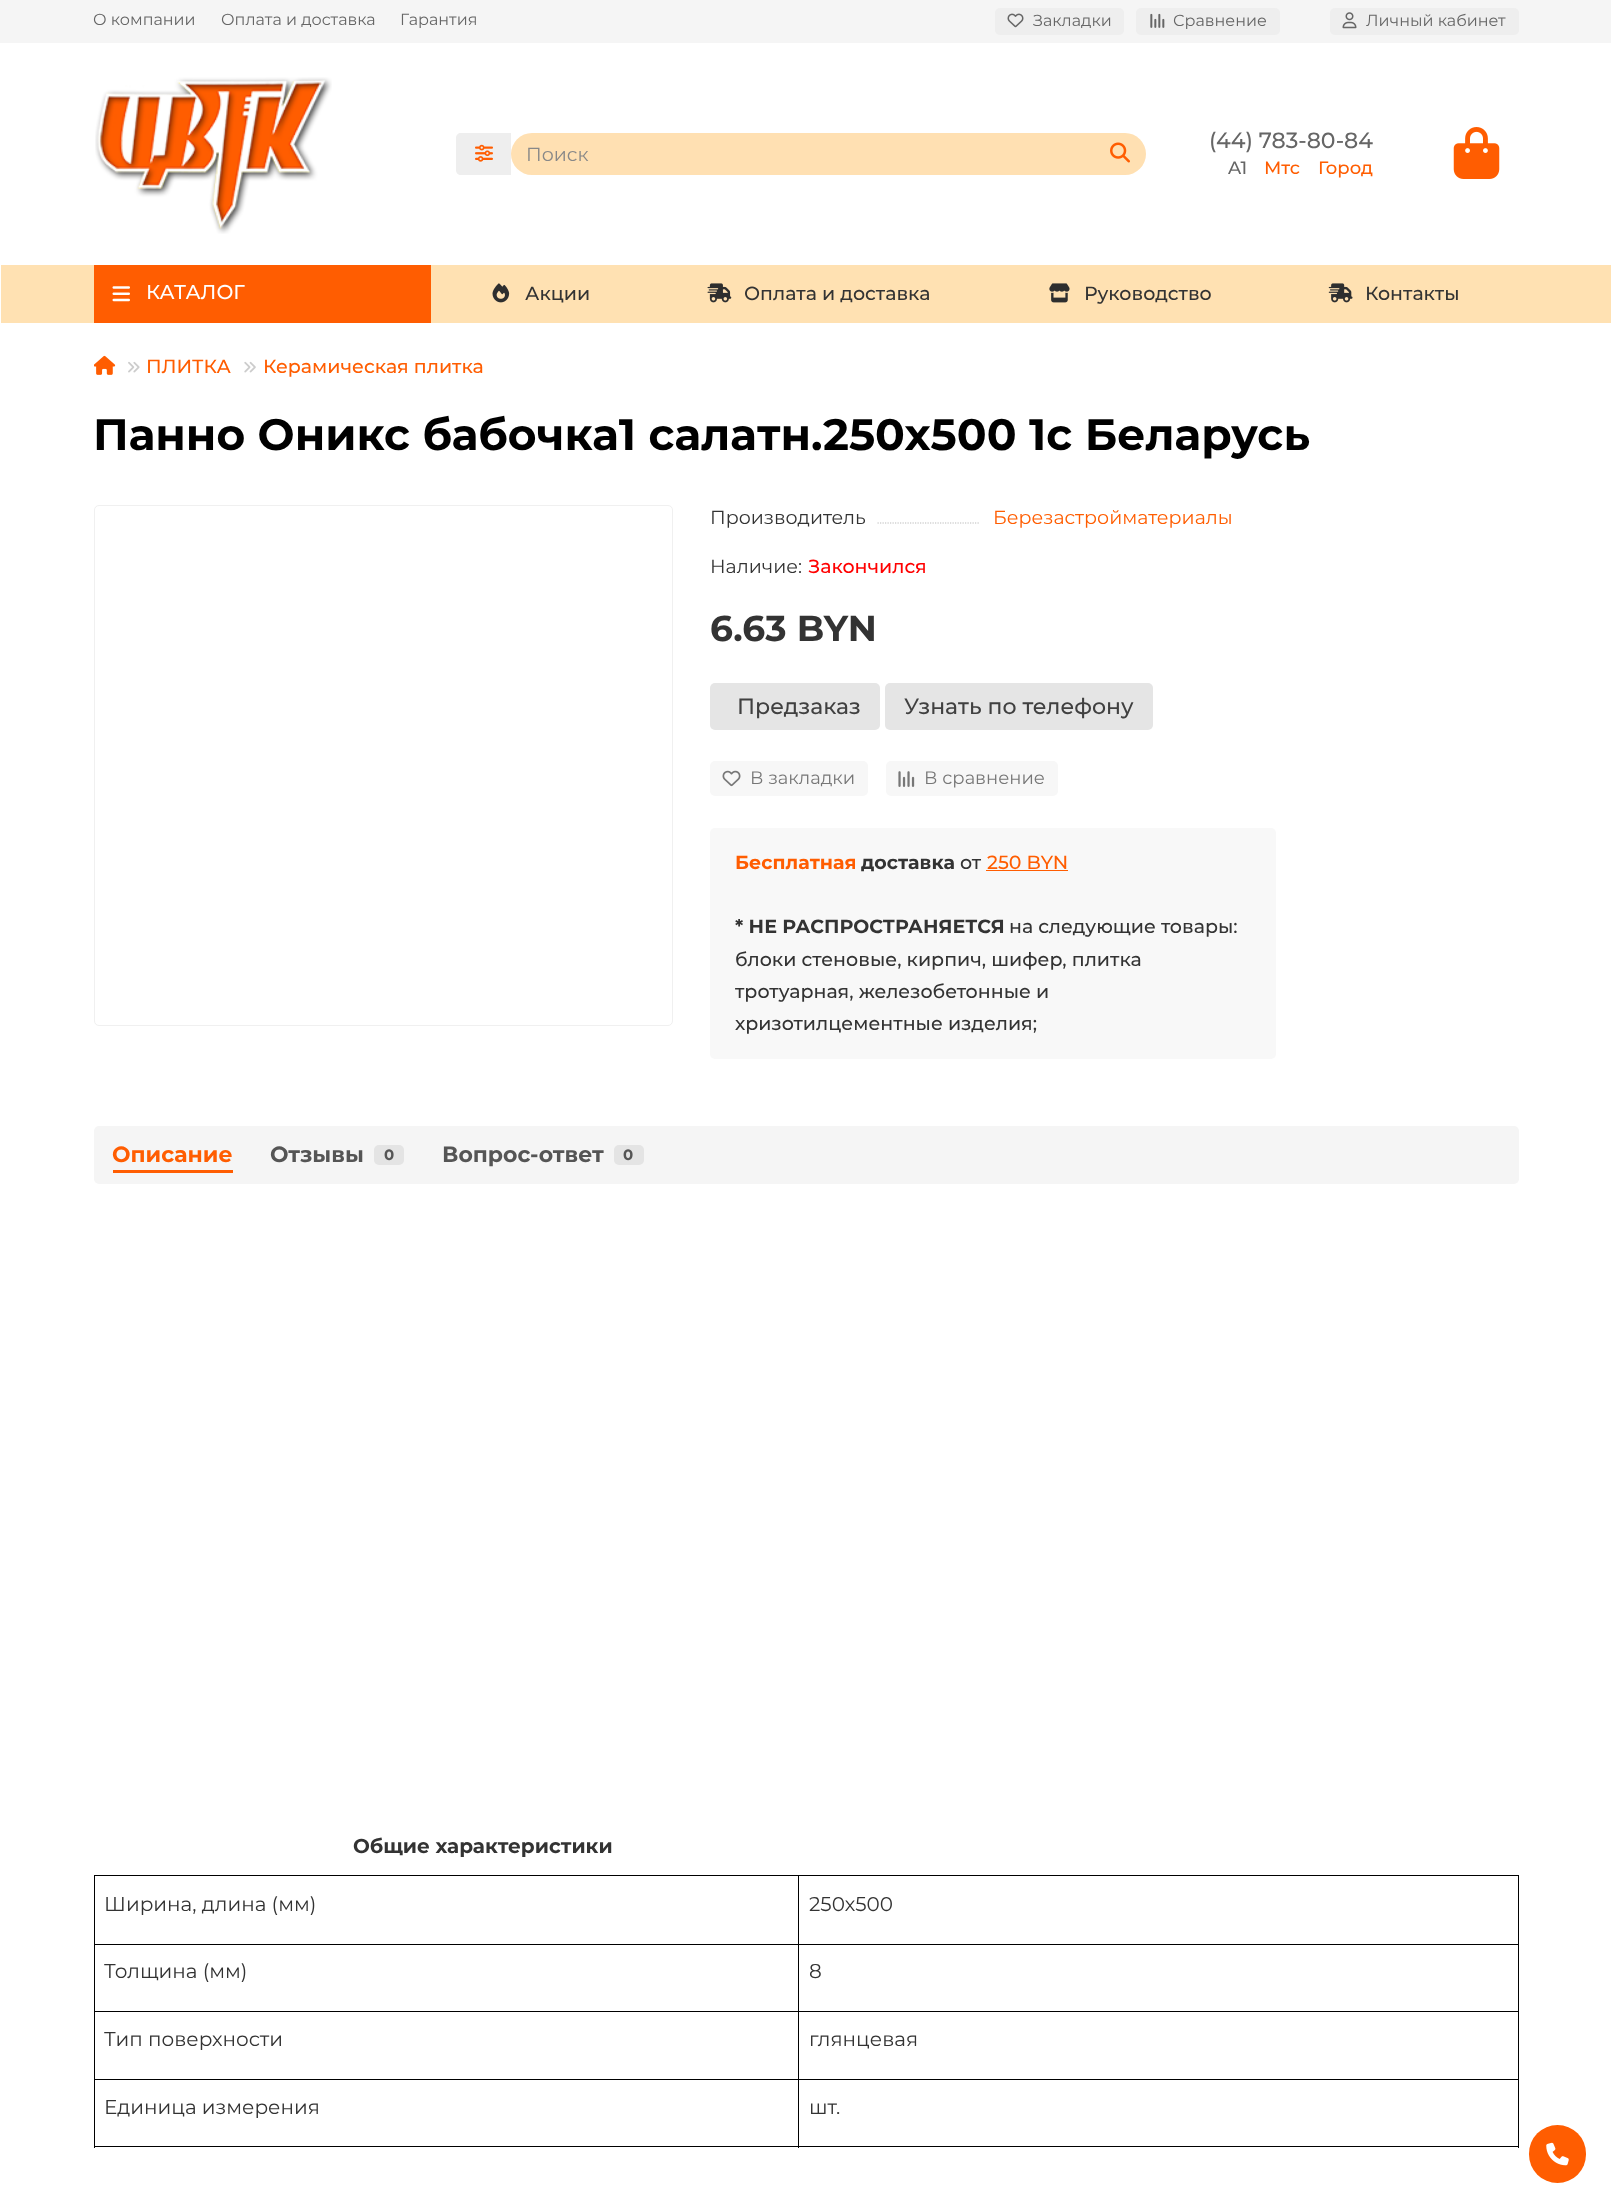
<svg xmlns="http://www.w3.org/2000/svg" width="1611" height="2207">
<style>
.a{font:16px Montserrat;fill:#666}
.b{font:19px Montserrat;fill:#888}
.c{font:500 22px Montserrat;fill:#666}
.d{font:500 18px Montserrat;fill:#666}
.e{font:500 18px Montserrat;fill:#ff5d01}
.f{font:500 20px Montserrat;fill:#fff}
.g{font:500 19px Montserrat;fill:#333}
.h{font:500 19px Montserrat;fill:#ff5d01}
.i{font:bold 44px Montserrat;fill:#000}
.j{font:19px Montserrat;fill:#333}
.k{font:19px Montserrat;fill:#ff5d01}
.l{font:500 19px Montserrat;fill:#ff0101}
.m{font:bold 36px Montserrat;fill:#333}
.n{font:500 22px Montserrat;fill:#404040}
.o{font:18px Montserrat;fill:#777}
.p{font:bold 19px Montserrat;fill:#ff5d01}
.q{font:bold 19px Montserrat;fill:#333}
.r{font:bold 22px Montserrat;fill:#ff5d01}
.s{font:bold 22px Montserrat;fill:#555}
.t{font:bold 15px Montserrat;fill:#555}
.u{font:bold 20px Montserrat;fill:#333}
.v{font:20px Montserrat;fill:#333}
</style>
<rect width="100%" height="100%" fill="#fff"/>
<path fill="#f5f5f5" d="M0 0h1611v43H0z"/>
<rect fill="#eee" x="995" y="8" width="129" height="27" rx="5"/>
<image href="1.png" x="1007" y="13" width="17" height="15"/>
<rect fill="#eee" x="1136" y="8" width="144" height="27" rx="5"/>
<image href="2.png" x="1150" y="13" width="15" height="15"/>
<rect fill="#eee" x="1330" y="8" width="189" height="27" rx="5"/>
<image href="3.png" x="1342" y="12" width="15" height="17"/>
<image href="4.png" x="95" y="77" width="237" height="157"/>
<path fill="#eee" d="M461 133h50v42h-50c-3 0-5-2-5-5v-32c0-3 2-5 5-5z"/>
<image href="5.png" x="475" y="144" width="18" height="18"/>
<rect fill="#ffe0b2" x="511" y="133" width="635" height="42" rx="21"/>
<image href="6.png" x="1110" y="142" width="20" height="21"/>
<image href="7.png" x="1453" y="127" width="47" height="52"/>
<path fill="#ffe1b2" d="M1 265h1610v58H1z"/>
<path fill="#ff5d01" d="M94 265h337v58H94z"/>
<image href="8.png" x="112" y="286" width="18" height="16"/>
<image href="9.png" x="492" y="283" width="18" height="20"/>
<image href="10.png" x="707" y="283" width="25" height="20"/>
<image href="11.png" x="1049" y="283" width="21" height="20"/>
<image href="12.png" x="1328" y="283" width="25" height="20"/>
<image href="13.png" x="94" y="355" width="22" height="20"/>
<image href="14.png" x="128" y="361" width="12" height="12"/>
<image href="15.png" x="244" y="361" width="12" height="12"/>
<rect fill="none" stroke="#f0f0f0" x="94.5" y="505.5" width="578" height="520" rx="4.5"/>
<path fill="none" stroke="#bbb" stroke-width="1.2" stroke-dasharray="1.25 1.25" d="M877.5 523h102.5"/>
<rect fill="#e5e5e5" x="710" y="683" width="170" height="47" rx="5"/>
<rect fill="#e5e5e5" x="885" y="683" width="268" height="47" rx="5"/>
<rect fill="#f7f7f7" x="710" y="761" width="158" height="35" rx="5"/>
<image href="16.png" x="722" y="770" width="19" height="17"/>
<rect fill="#f7f7f7" x="886" y="761" width="172" height="35" rx="5"/>
<image href="17.png" x="898" y="771" width="17" height="16"/>
<rect fill="#f8f8f8" x="710" y="828" width="566" height="231" rx="5"/>
<path fill="#ff5d01" d="M986 870h82v1H986z"/>
<rect fill="#f5f5f5" x="94" y="1126" width="1425" height="58" rx="5"/>
<path fill="#ff5d01" d="M113 1170h120v3H113z"/>
<rect fill="#e4e4e4" x="374" y="1145" width="30" height="20" rx="5"/>
<rect fill="#e4e4e4" x="614" y="1145" width="30" height="20" rx="5"/>
<path fill="#000" d="M798 1875h721v1H798z"/>
<path fill="#000" d="M798 1944h721v1H798z"/>
<path fill="#000" d="M798 2011h721v1H798z"/>
<path fill="#000" d="M798 2079h721v1H798z"/>
<path fill="#000" d="M1518 2079h1v69H1518z"/>
<path fill="#000" d="M798 2146h721v1H798z"/>
<path fill="#000" d="M798 2079h1v69H798z"/>
<path fill="#000" d="M94 2079h705v1H94z"/>
<path fill="#000" d="M798 2011h1v69H798z"/>
<path fill="#000" d="M94 2011h705v1H94z"/>
<path fill="#000" d="M798 1944h1v69H798z"/>
<path fill="#000" d="M94 1944h705v1H94z"/>
<path fill="#000" d="M798 1875h1v70H798z"/>
<path fill="#000" d="M94 1875h705v1H94z"/>
<path fill="#000" d="M94 2146h705v1H94z"/>
<path fill="#000" d="M94 2079h1v69H94z"/>
<path fill="#000" d="M94 2011h1v69H94z"/>
<path fill="#000" d="M94 1944h1v69H94z"/>
<path fill="#000" d="M94 1875h1v70H94z"/>
<path fill="#000" d="M1518 2011h1v69H1518z"/>
<path fill="#000" d="M1518 1944h1v69H1518z"/>
<path fill="#000" d="M1518 1875h1v70H1518z"/>
<rect fill="#ff5d01" x="1529" y="2125" width="57" height="58" rx="28.5"/>
<image href="18.png" x="1546" y="2142" width="23" height="24"/>
<text class="a" x="93" y="25">О компании</text>
<text class="a" x="221" y="25">Оплата и доставка</text>
<text class="a" x="400" y="25">Гарантия</text>
<text class="a" x="1033" y="26">Закладки</text>
<text class="a" x="1173" y="26">Сравнение</text>
<text class="a" x="1366" y="26">Личный кабинет</text>
<text class="b" x="526" y="161">Поиск</text>
<text class="c" x="1209" y="148">(44) 783-80-84</text>
<text class="d" x="1228" y="174">A1</text>
<text class="e" x="1264" y="174">Мтс</text>
<text class="e" x="1318" y="174">Город</text>
<text class="f" x="146" y="299">КАТАЛОГ</text>
<text class="g" x="525" y="300">Акции</text>
<text class="g" x="744" y="300">Оплата и доставка</text>
<text class="g" x="1084" y="300">Руководство</text>
<text class="g" x="1365" y="300">Контакты</text>
<text class="h" x="146" y="373">ПЛИТКА</text>
<text class="h" x="263" y="373">Керамическая плитка</text>
<text class="i" x="93" y="450">Панно Оникс бабочка1 салатн.250х500 1с Беларусь</text>
<text class="j" x="710" y="524">Производитель</text>
<text class="k" x="993" y="524">Березастройматериалы</text>
<text class="j" x="710" y="573">Наличие:</text>
<text class="l" x="808" y="573">Закончился</text>
<text class="m" x="710" y="641">6.63 BYN</text>
<text class="n" x="737" y="714">Предзаказ</text>
<text class="n" x="904" y="714">Узнать по телефону</text>
<text class="o" x="750" y="784">В закладки</text>
<text class="o" x="924" y="784">В сравнение</text>
<text class="p" x="735" y="869">Бесплатная</text>
<text class="q" x="861" y="869">доставка</text>
<text class="g" x="960" y="869">от</text>
<text class="h" x="987" y="869">250 BYN</text>
<text class="q" x="735" y="933">* НЕ РАСПРОСТРАНЯЕТСЯ</text>
<text class="g" x="1009" y="933">на следующие товары:</text>
<text class="g" x="735" y="966">блоки стеновые, кирпич, шифер, плитка</text>
<text class="g" x="735" y="998">тротуарная, железобетонные и</text>
<text class="g" x="735" y="1030">хризотилцементные изделия;</text>
<text class="r" x="112" y="1162">Описание</text>
<text class="s" x="270" y="1162">Отзывы</text>
<text class="t" x="384" y="1160">0</text>
<text class="s" x="442" y="1162">Вопрос-ответ</text>
<text class="t" x="623" y="1160">0</text>
<text class="u" x="353" y="1853">Общие характеристики</text>
<text class="v" x="104" y="1911">Ширина, длина (мм)</text>
<text class="v" x="809" y="1911">250х500</text>
<text class="v" x="104" y="1978">Толщина (мм)</text>
<text class="v" x="809" y="1978">8</text>
<text class="v" x="104" y="2046">Тип поверхности</text>
<text class="v" x="809" y="2046">глянцевая</text>
<text class="v" x="104" y="2114">Единица измерения</text>
<text class="v" x="809" y="2114">шт.</text>
</svg>
